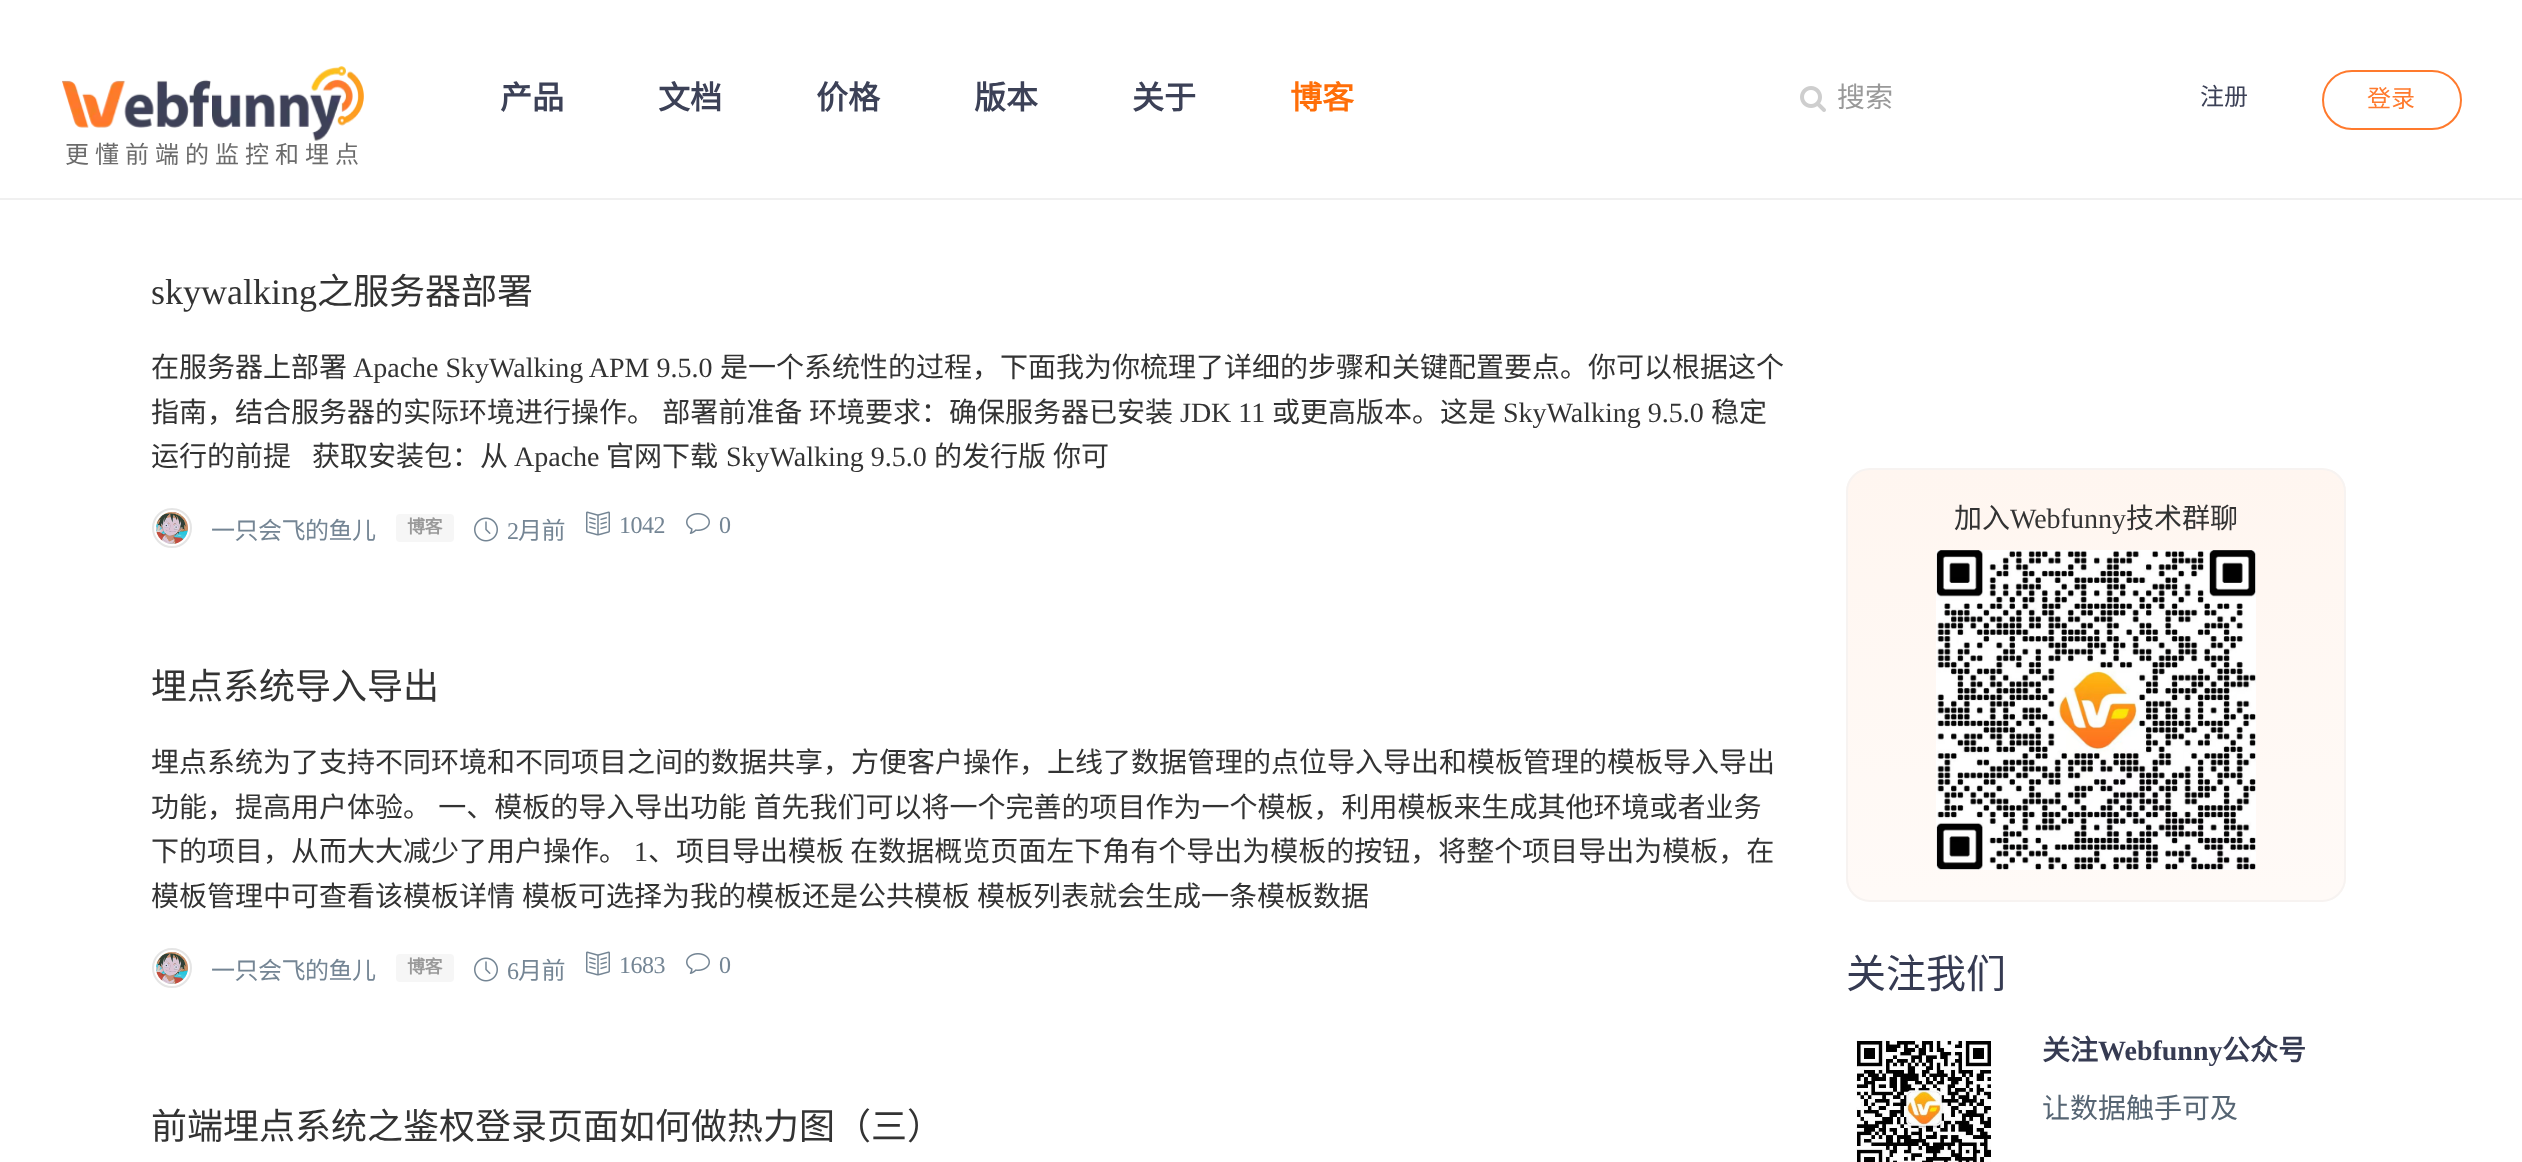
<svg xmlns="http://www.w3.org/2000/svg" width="2522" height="1162">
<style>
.a{font:bold 32px Noto Sans CJK SC;fill:#3c4157}
.b{font:bold 32px Noto Sans CJK SC;fill:#ff6e08}
.c{font:28px Noto Sans CJK SC;fill:#999}
.d{font:24px Noto Sans CJK SC;fill:#3c4157}
.e{font:24px Noto Sans CJK SC;fill:#ff7a2d}
.f{font:24px Noto Sans CJK SC;letter-spacing:6px;fill:#6b6b6b}
.g{font:36px Liberation Serif;fill:#333}
.h{font:36px Noto Sans CJK SC;fill:#333}
.i{font:28px Noto Sans CJK SC;fill:#333}
.j{font:28px Liberation Serif;fill:#333}
.k{font:24px Noto Sans CJK SC;letter-spacing:-0.5px;fill:#748594}
.l{font:bold 18px Noto Sans CJK SC;letter-spacing:-0.5px;fill:#999}
.m{font:24px Liberation Serif;letter-spacing:-0.5px;fill:#748594}
.n{font:40px Noto Sans CJK SC;fill:#363b52}
.o{font:bold 28px Noto Sans CJK SC;fill:#363b52}
.p{font:bold 28px Liberation Serif;fill:#363b52}
.q{font:28px Noto Sans CJK SC;fill:#566573}
</style>
<defs>
<clipPath id="clip1"><rect x="1846" y="468" width="500" height="434" rx="24"/></clipPath>
<linearGradient id="g1" gradientUnits="userSpaceOnUse" x1="2096" y1="470" x2="2096" y2="900"><stop offset="0" stop-color="#fff6f0"/><stop offset="0.99" stop-color="#fffaf7"/></linearGradient>
</defs>
<rect width="100%" height="100%" fill="#fff"/>
<path fill="#f0f0f0" d="M0 198h2522v2H0z"/>
<image href="1.png" x="1800" y="86" width="26" height="26"/>
<rect fill="none" stroke="#ff7a2d" stroke-width="2" x="2323" y="71" width="138" height="58" rx="29"/>
<image href="2.png" x="62" y="66" width="302" height="75"/>
<circle fill="none" stroke="#e5e5e5" stroke-width="2" cx="172" cy="528" r="19"/>
<image href="3.png" x="156" y="512" width="32" height="32"/>
<rect fill="#f6f6f6" x="396" y="514" width="58" height="28" rx="4"/>
<image href="4.png" x="474" y="517" width="24" height="25"/>
<image href="5.png" x="586" y="511" width="24" height="25"/>
<image href="6.png" x="686" y="513" width="24" height="21"/>
<circle fill="none" stroke="#e5e5e5" stroke-width="2" cx="172" cy="968" r="19"/>
<image href="7.png" x="156" y="952" width="32" height="32"/>
<rect fill="#f6f6f6" x="396" y="954" width="58" height="28" rx="4"/>
<image href="4.png" x="474" y="957" width="24" height="25"/>
<image href="5.png" x="586" y="951" width="24" height="25"/>
<image href="6.png" x="686" y="953" width="24" height="21"/>
<g clip-path="url(#clip1)">
<path fill="url(#g1)" d="M1846 470h500v430H1846z"/>
</g>
<rect fill="none" stroke="#f7f3f1" stroke-width="2" x="1847" y="469" width="498" height="432" rx="23"/>
<image href="8.png" x="1936" y="550" width="320" height="320"/>
<image href="9.png" x="1856" y="1040" width="135" height="122"/>
<text class="a" x="500" y="109">产品</text>
<text class="a" x="658" y="109">文档</text>
<text class="a" x="816" y="109">价格</text>
<text class="a" x="974" y="109">版本</text>
<text class="a" x="1132" y="109">关于</text>
<text class="b" x="1290" y="109">博客</text>
<text class="c" x="1837" y="107">搜索</text>
<text class="d" x="2200" y="105">注册</text>
<text class="e" x="2367" y="107">登录</text>
<text class="f" x="65" y="163">更懂前端的监控和埋点</text>
<text class="g" x="151" y="304">skywalking</text>
<text class="h" x="317" y="304">之服务器部署</text>
<text class="i" x="151" y="377">在服务器上部署</text>
<text class="j" x="353" y="377">Apache SkyWalking APM 9.5.0</text>
<text class="i" x="720" y="377">是一个系统性的过程，下面我为你梳理了详细的步骤和关键配置要点。你可以根据这个</text>
<text class="i" x="151" y="422" word-spacing="1">指南，结合服务器的实际环境进行操作。 部署前准备</text>
<text class="i" x="809" y="422">环境要求：确保服务器已安装</text>
<text class="j" x="1180" y="422">JDK 11</text>
<text class="i" x="1272" y="422">或更高版本。这是</text>
<text class="j" x="1503" y="422">SkyWalking 9.5.0</text>
<text class="i" x="1711" y="422">稳定</text>
<text class="i" x="151" y="466">运行的前提</text>
<text class="i" x="312" y="466">获取安装包：从</text>
<text class="j" x="514" y="466">Apache</text>
<text class="i" x="606" y="466">官网下载</text>
<text class="j" x="726" y="466">SkyWalking 9.5.0</text>
<text class="i" x="934" y="466">的发行版</text>
<text class="i" x="1053" y="466">你可</text>
<text class="k" x="211" y="539">一只会飞的鱼儿</text>
<text class="l" x="407" y="533">博客</text>
<text class="m" x="507" y="539">2</text>
<text class="k" x="518" y="539">月前</text>
<text class="m" x="619" y="533">1042</text>
<text class="m" x="719" y="533">0</text>
<text class="h" x="151" y="699">埋点系统导入导出</text>
<text class="i" x="151" y="772">埋点系统为了支持不同环境和不同项目之间的数据共享，方便客户操作，上线了数据管理的点位导入导出和模板管理的模板导入导出</text>
<text class="i" x="151" y="817" word-spacing="1">功能，提高用户体验。 一、模板的导入导出功能 首先我们可以将一个完善的项目作为一个模板，利用模板来生成其他环境或者业务</text>
<text class="i" x="151" y="861">下的项目，从而大大减少了用户操作。</text>
<text class="j" x="634" y="861">1</text>
<text class="i" x="648" y="861">、项目导出模板 在数据概览页面左下角有个导出为模板的按钮，将整个项目导出为模板，在</text>
<text class="i" x="151" y="906">模板管理中可查看该模板详情</text>
<text class="i" x="522" y="906">模板可选择为我的模板还是公共模板</text>
<text class="i" x="977" y="906">模板列表就会生成一条模板数据</text>
<text class="k" x="211" y="979">一只会飞的鱼儿</text>
<text class="l" x="407" y="973">博客</text>
<text class="m" x="507" y="979">6</text>
<text class="k" x="518" y="979">月前</text>
<text class="m" x="619" y="973">1683</text>
<text class="m" x="719" y="973">0</text>
<text class="h" x="151" y="1139">前端埋点系统之鉴权登录页面如何做热力图（三）</text>
<text class="i" x="1954" y="528">加入</text>
<text class="j" x="2010" y="528">Webfunny</text>
<text class="i" x="2126" y="528">技术群聊</text>
<text class="n" x="1846" y="988">关注我们</text>
<text class="o" x="2042" y="1060">关注</text>
<text class="p" x="2098" y="1060">Webfunny</text>
<text class="o" x="2222" y="1060">公众号</text>
<text class="q" x="2042" y="1118">让数据触手可及</text>
</svg>
